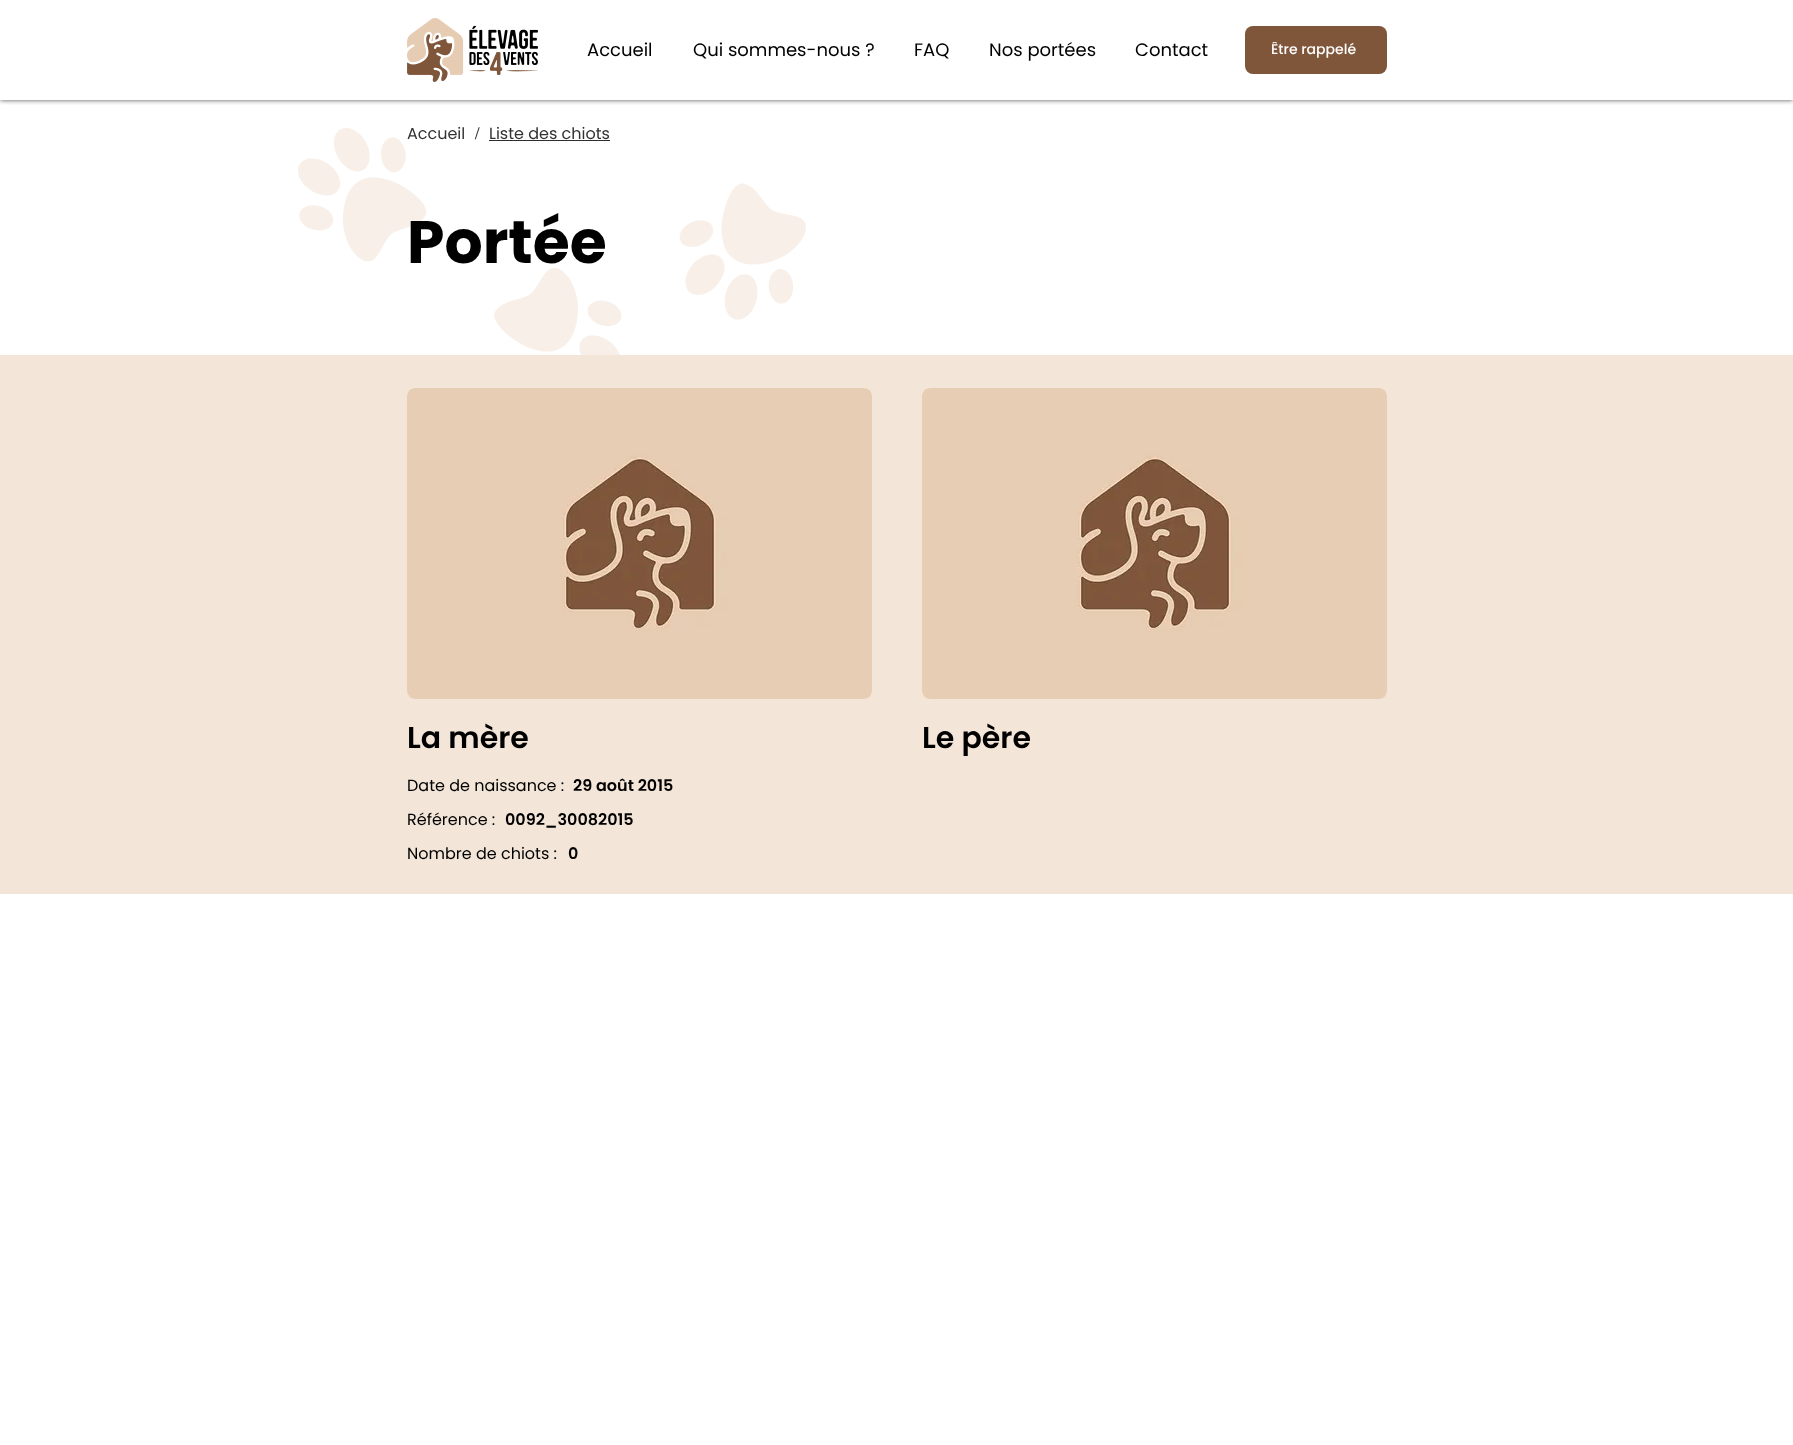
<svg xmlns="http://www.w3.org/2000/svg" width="1793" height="1445">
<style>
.a{font:18px Poppins;fill:#000}
.b{font:500 14px Poppins;fill:#fff}
.c{font:16px Poppins;fill:#323232}
.d{font:16px helvetica;fill:#323232}
.e{font:bold 60px Poppins;fill:#000}
.f{font:600 30px Poppins;fill:#000}
.g{font:16px Poppins;fill:#000}
.h{font:600 16px Poppins;fill:#000}
</style>
<defs>
<clipPath id="clip1"><path d="M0 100h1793v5H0z"/></clipPath>
<clipPath id="clip2"><path d="M1271 42h85v16H1271z"/></clipPath>
</defs>
<rect width="100%" height="100%" fill="#fff"/>
<g clip-path="url(#clip1)">
<path fill="#000000b3" filter="blur(2.5px)" d="M0 0h1793v100H0z"/>
</g>
<image href="1.png" x="407" y="18" width="131" height="64"/>
<rect fill="#7f563a" x="1245" y="26" width="142" height="48" rx="8"/>
<image href="2.png" x="298" y="128" width="508" height="227"/>
<path fill="#2f2e2e" d="M489 140h121v1H489z"/>
<path fill="#f3e5d7" d="M0 355h1793v539H0z"/>
<rect fill="#fff" x="407" y="388" width="465" height="311" rx="8"/>
<image href="3.png" x="407" y="388" width="465" height="311"/>
<rect fill="#fff" x="922" y="388" width="465" height="311" rx="8"/>
<image href="3.png" x="922" y="388" width="465" height="311"/>
<text class="a" x="587" y="56">Accueil</text>
<text class="a" x="693" y="56">Qui sommes-nous ?</text>
<text class="a" x="914" y="56">FAQ</text>
<text class="a" x="989" y="56">Nos portées</text>
<text class="a" x="1135" y="56">Contact</text>
<g clip-path="url(#clip2)">
<text class="b" x="1271" y="54">Être rappelé</text>
</g>
<text class="c" x="407" y="139">Accueil</text>
<text class="d" x="475" y="139">/</text>
<text class="c" x="489" y="139">Liste des chiots</text>
<text class="e" x="407" y="263">Portée</text>
<text class="f" x="407" y="748">La mère</text>
<text class="f" x="922" y="748">Le père</text>
<text class="g" x="407" y="791">Date de naissance :</text>
<text class="h" x="573" y="791">29 août 2015</text>
<text class="g" x="407" y="825">Référence :</text>
<text class="h" x="505" y="825">0092_30082015</text>
<text class="g" x="407" y="859">Nombre de chiots :</text>
<text class="h" x="568" y="859">0</text>
</svg>
